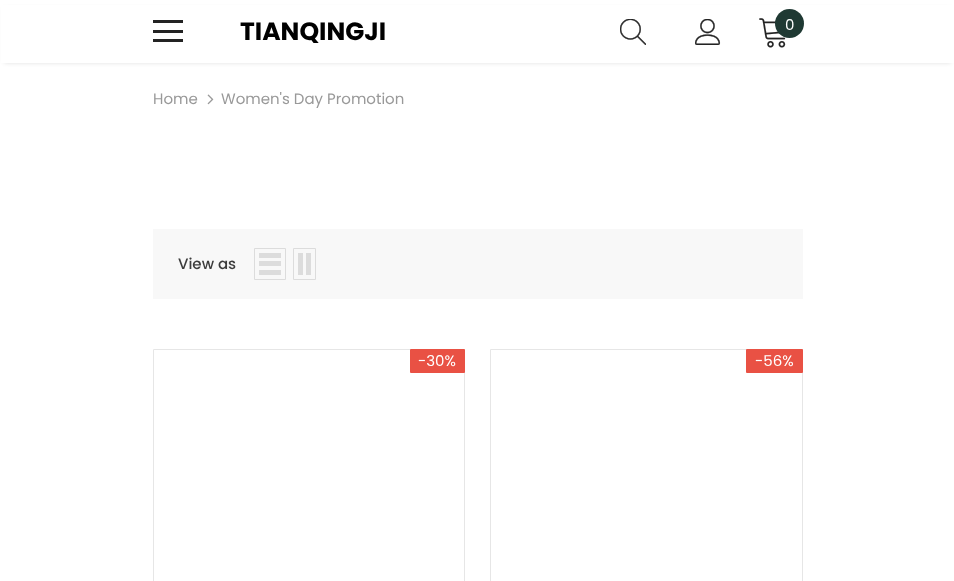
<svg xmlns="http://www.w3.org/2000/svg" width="954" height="581">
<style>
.a{font:bold 25px Poppins;fill:#000}
.b{font:15px Poppins;fill:#fff}
.c{font:15px Poppins;fill:#999}
.d{font:500 15px Poppins;fill:#3c3c3c}
</style>
<rect width="100%" height="100%" fill="#fff"/>
<path fill="#0000001f" filter="blur(2px)" d="M4 8h947v55H4z"/>
<path fill="#fff" d="M1 5h953v58H1z"/>
<path fill="#232323" d="M153 20h30v3H153z"/>
<path fill="#232323" d="M153 30h30v3H153z"/>
<path fill="#232323" d="M153 39h30v3H153z"/>
<image href="1.png" x="620" y="19" width="26" height="26"/>
<image href="2.png" x="695" y="19" width="26" height="26"/>
<image href="3.png" x="759" y="18" width="27" height="30"/>
<circle fill="#1f3933" cx="789.5" cy="23.5" r="14.5"/>
<image href="4.png" x="207" y="94" width="7" height="11"/>
<path fill="#f8f8f8" d="M153 229h650v70H153z"/>
<path fill="none" stroke="#dcdcdc" d="M254.5 248.5h31v31H254.5z"/>
<path fill="#dcdcdc" d="M259 270h22v5H259z"/>
<path fill="#dcdcdc" d="M259 261h22v5H259z"/>
<path fill="#dcdcdc" d="M259 253h22v5H259z"/>
<path fill="none" stroke="#dcdcdc" d="M293.5 248.5h22v31H293.5z"/>
<path fill="#dcdcdc" d="M306 253h5v22H306z"/>
<path fill="#dcdcdc" d="M298 253h5v22H298z"/>
<path fill="none" stroke="#e6e6e6" d="M153.5 349.5h311v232H153.5z"/>
<rect fill="#e95144" x="410" y="349" width="55" height="24" rx="1"/>
<path fill="none" stroke="#e6e6e6" d="M490.5 349.5h312v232H490.5z"/>
<rect fill="#e95144" x="746" y="349" width="57" height="24" rx="1"/>
<text class="a" x="240" y="40">TIANQINGJI</text>
<text class="b" x="785" y="30">0</text>
<text class="c" x="153" y="104">Home</text>
<text class="c" x="221" y="104">Women's Day Promotion</text>
<text class="d" x="178" y="269">View as</text>
<text class="b" x="418" y="366">-30%</text>
<text class="b" x="755" y="366">-56%</text>
</svg>
